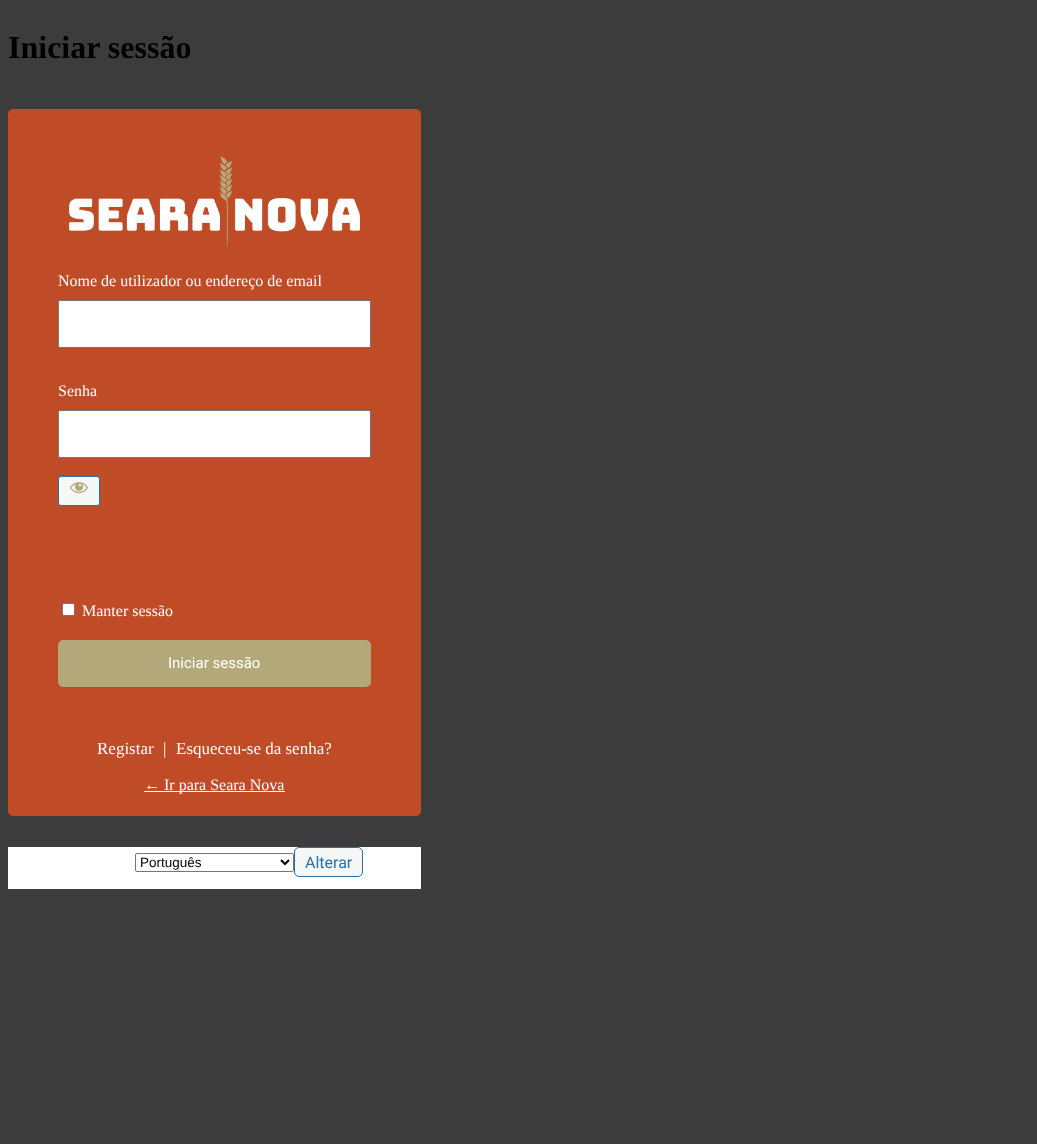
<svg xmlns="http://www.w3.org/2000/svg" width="1037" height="1144">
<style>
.a{font:bold 32px Liberation Serif;fill:#000}
.b{font:16px Liberation Serif;fill:#fff}
.c{font:15px Roboto;fill:#fff}
.d{font:17px Liberation Serif;fill:#fff}
.e{font:13.5px Liberation Sans;fill:#000}
.f{font:16px Roboto;fill:#2271b1}
</style>
<rect width="100%" height="100%" fill="#3c3c3c"/>
<rect fill="#c04c27" x="8" y="109" width="413" height="707" rx="5"/>
<image href="1.png" x="69" y="156" width="291" height="90"/>
<rect fill="#fff" stroke="#767676" x="58.5" y="300.5" width="312" height="47" rx="1.5"/>
<rect fill="#fff" stroke="#767676" x="58.5" y="410.5" width="312" height="47" rx="1.5"/>
<rect fill="#f6f7f7" stroke="#2271b1" x="58.5" y="476.5" width="41" height="29" rx="2.5"/>
<image href="2.png" x="70" y="482" width="18" height="12"/>
<rect fill="#fff" stroke="#767676" x="62.5" y="603.5" width="12" height="12" rx="1.5"/>
<rect fill="#b3a87a" stroke="#b3a87a" x="58.5" y="640.5" width="312" height="46" rx="4.5"/>
<path fill="#fff" d="M144 791h141v1H144z"/>
<path fill="#fff" d="M8 847h413v42H8z"/>
<rect fill="none" stroke="#767676" x="135.5" y="853.5" width="158" height="18" rx="1.5"/>
<path fill="none" stroke="#000" stroke-width="2" d="M281 860l4 4l4-4"/>
<rect fill="#f6f7f7" stroke="#2271b1" x="294.5" y="847.5" width="68" height="29" rx="4.5"/>
<text class="a" x="8" y="58">Iniciar sessão</text>
<text class="b" x="58" y="286">Nome de utilizador ou endereço de email</text>
<text class="b" x="58" y="396">Senha</text>
<text class="b" x="82" y="616">Manter sessão</text>
<text class="c" x="168" y="668">Iniciar sessão</text>
<text class="d" x="97" y="754">Registar</text>
<text class="d" x="163" y="754">|</text>
<text class="d" x="176" y="754">Esqueceu-se da senha?</text>
<text class="b" x="144" y="790">← Ir para Seara Nova</text>
<text class="e" x="140" y="867">Português</text>
<text class="f" x="305" y="868">Alterar</text>
</svg>
